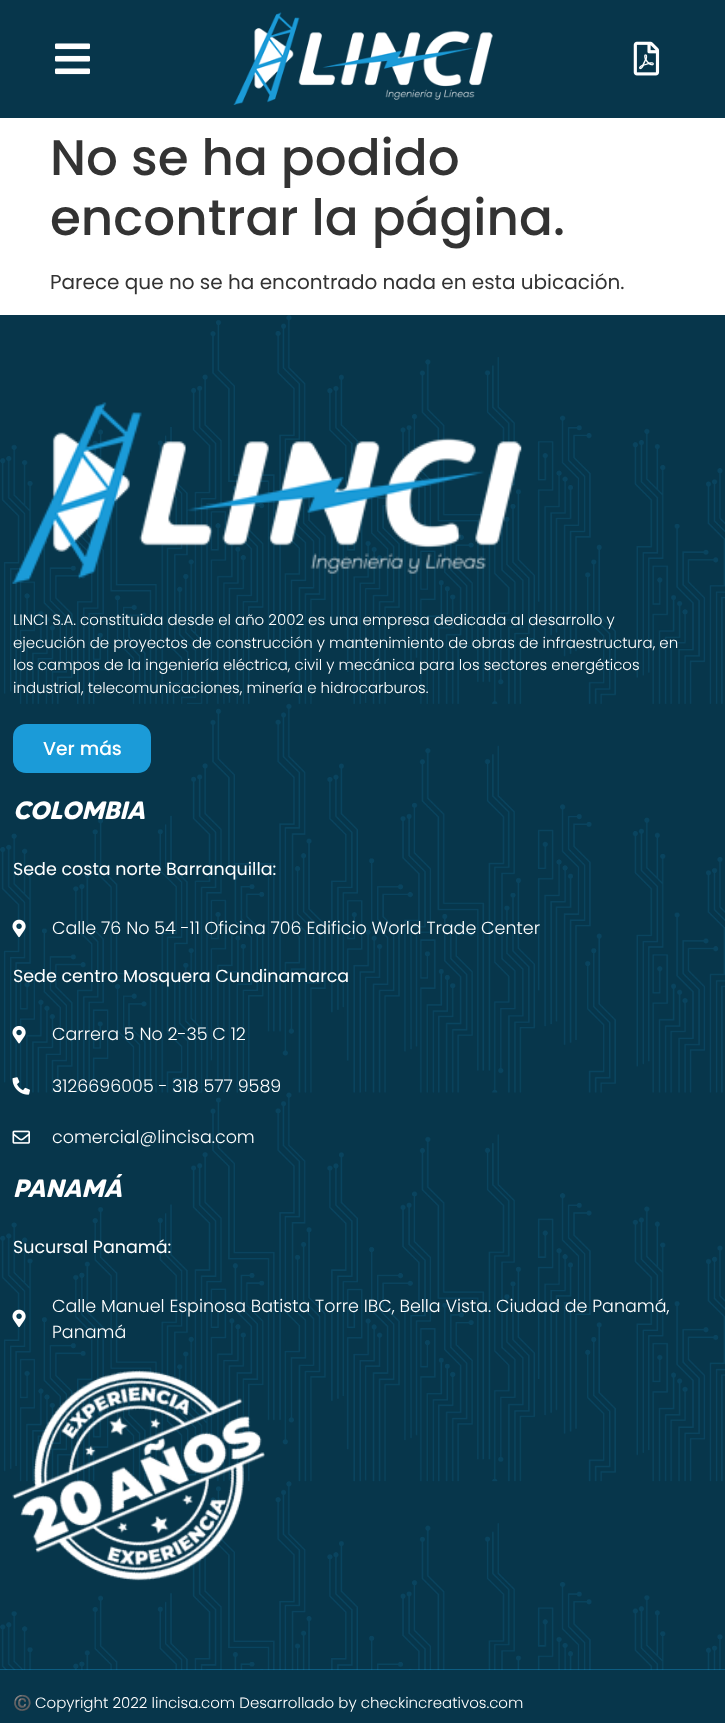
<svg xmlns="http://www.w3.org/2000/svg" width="725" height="1723">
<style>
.a{font:500 50px Poppins;fill:#333}
.b{font:20px Poppins;fill:#333}
.c{font:300 15px Poppins;fill:#fff}
.d{font:500 18.75px Poppins;fill:#fff}
.e{font:italic bold 25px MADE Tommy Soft;fill:#fff}
.f{font:17.5px Poppins;fill:#fff}
.g{font:300 17.5px Poppins;fill:#fff}
.h{font:15px Noto Color Emoji;fill:#fff}
</style>
<rect width="100%" height="100%" fill="#fff"/>
<path fill="#07364b" d="M0 0h725v118H0z"/>
<image href="1.png" x="55" y="43" width="35" height="32"/>
<image href="2.png" x="233" y="12" width="260" height="93"/>
<image href="3.png" x="633" y="41" width="27" height="35"/>
<path fill="#07364b" d="M0 315h725v1408H0z"/>
<image href="4.png" x="0" y="315" width="725" height="1355"/>
<path fill="#1b9bd861" d="M0 1669h725v1H0z"/>
<image href="5.png" x="12" y="402" width="510" height="182"/>
<rect fill="#1b9bd8" x="13" y="724" width="138" height="49" rx="13"/>
<image href="6.png" x="12" y="919" width="14" height="19"/>
<image href="7.png" x="12" y="1025" width="14" height="19"/>
<image href="8.png" x="12" y="1077" width="18" height="18"/>
<image href="9.png" x="12" y="1130" width="18" height="14"/>
<image href="6.png" x="12" y="1309" width="14" height="19"/>
<image href="10.png" x="12" y="1370" width="253" height="211"/>
<text class="a" x="50" y="175">No se ha podido</text>
<text class="a" x="50" y="235">encontrar la página.</text>
<text class="b" x="50" y="289">Parece que no se ha encontrado nada en esta ubicación.</text>
<text class="c" x="13" y="625">LINCI S.A. constituida desde el año 2002 es una empresa dedicada al desarrollo y</text>
<text class="c" x="13" y="648">ejecución de proyectos de construcción y mantenimiento de obras de infraestructura, en</text>
<text class="c" x="13" y="670">los campos de la ingeniería eléctrica, civil y mecánica para los sectores energéticos</text>
<text class="c" x="13" y="693">industrial, telecomunicaciones, minería e hidrocarburos.</text>
<text class="d" x="43" y="755">Ver más</text>
<text class="e" x="13" y="819">COLOMBIA</text>
<text class="f" x="13" y="875">Sede costa norte Barranquilla:</text>
<text class="g" x="52" y="934">Calle 76 No 54 -11 Oficina 706 Edificio World Trade Center</text>
<text class="f" x="13" y="982">Sede centro Mosquera Cundinamarca</text>
<text class="g" x="52" y="1040">Carrera 5 No 2-35 C 12</text>
<text class="g" x="52" y="1092">3126696005 - 318 577 9589</text>
<text class="g" x="52" y="1143">comercial@lincisa.com</text>
<text class="e" x="13" y="1197">PANAMÁ</text>
<text class="f" x="13" y="1253">Sucursal Panamá:</text>
<text class="g" x="52" y="1312">Calle Manuel Espinosa Batista Torre IBC, Bella Vista. Ciudad de Panamá,</text>
<text class="g" x="52" y="1338">Panamá</text>
<text class="h" x="13" y="1708">©️</text>
<text class="c" x="35" y="1708">Copyright 2022 lincisa.com Desarrollado by checkincreativos.com</text>
</svg>
